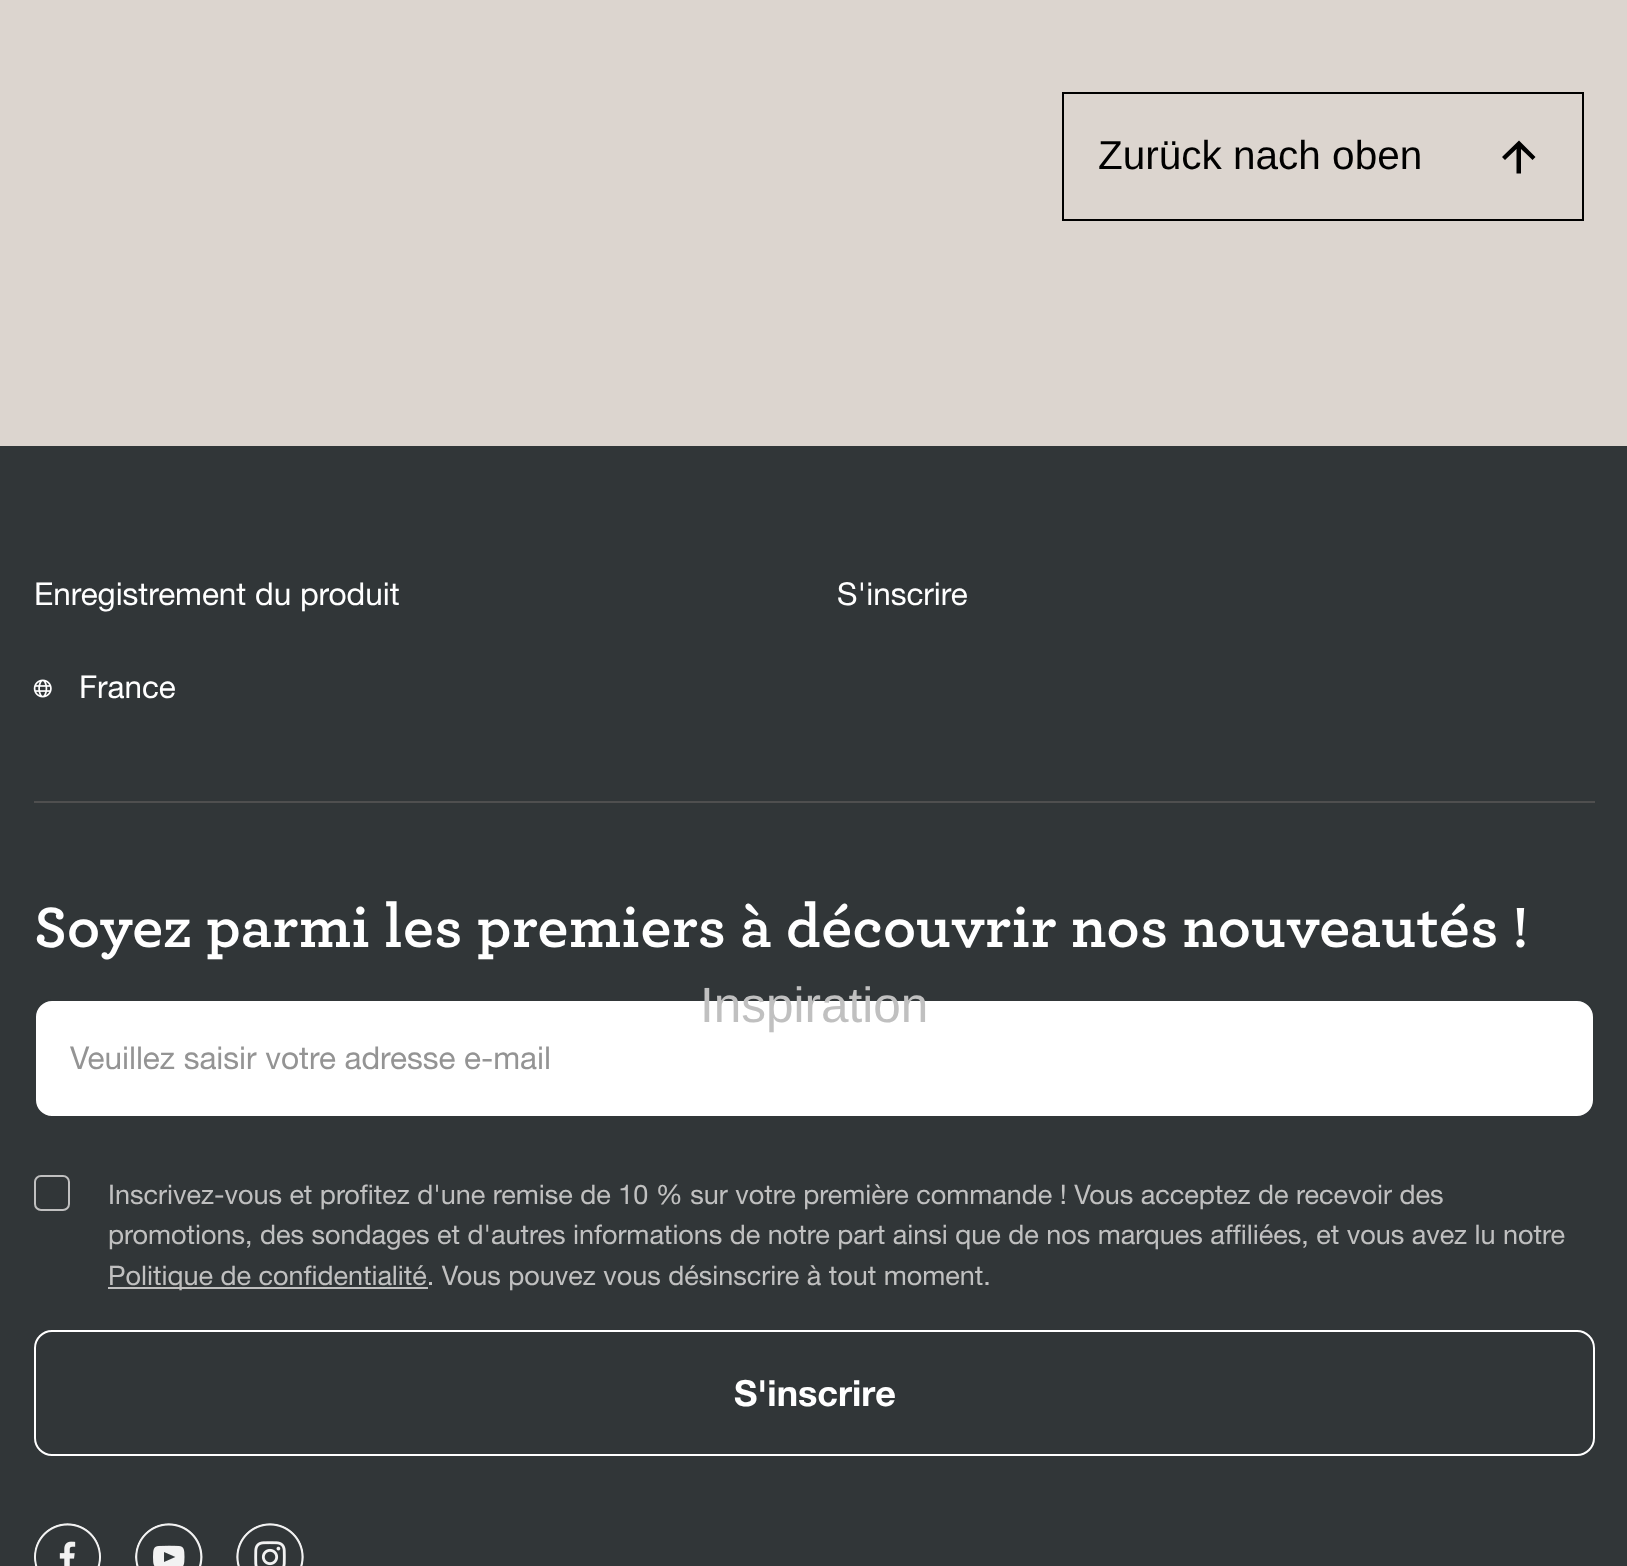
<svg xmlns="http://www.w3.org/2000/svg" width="1627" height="1566">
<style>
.a{font:40.5px Liberation Sans;fill:#000}
.b{font:31.5px Helvetica Neue;fill:#fff}
.c{font:bold 54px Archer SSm;fill:#fff}
.d{font:31.5px Helvetica Neue;fill:#949494}
.e{font:27px Helvetica Neue;fill:#c0c0c0}
.f{font:bold 36px Helvetica Neue;fill:#fff}
.g{font:49.5px Liberation Sans;fill:#c0c0c0}
</style>
<rect width="100%" height="100%" fill="#dcd5cf"/>
<path fill="none" stroke="#000" stroke-width="2" d="M1063 93h520v127H1063z"/>
<path fill="#000" fill-rule="evenodd" d="M1521 173.5v-24.5l11.5 11l3-3l-16.5-16.5l-17 16.5l3 3l11.5-11v24.5z"/>
<path fill="#313638" d="M0 446h1627v1120H0z"/>
<path fill="#4f4f4f" d="M34 801h1561v2H34z"/>
<image href="1.png" x="33" y="679" width="19" height="19"/>
<rect fill="#fff" stroke="#313638" stroke-width="2" x="35" y="1000" width="1559" height="117" rx="17"/>
<rect fill="none" stroke="#767676" stroke-width="2" x="35" y="1178" width="27" height="27" rx="4"/>
<rect fill="#313638" stroke="#c0c0c0" stroke-width="2" x="35" y="1176" width="34" height="34" rx="6"/>
<path fill="#c0c0c0" d="M108 1287h320v2H108z"/>
<rect fill="none" stroke="#fff" stroke-width="2" x="35" y="1331" width="1559" height="124" rx="17"/>
<image href="2.png" x="34" y="1523" width="67" height="43"/>
<image href="3.png" x="135" y="1523" width="68" height="43"/>
<image href="4.png" x="236" y="1523" width="68" height="43"/>
<text class="a" x="1098" y="169">Zurück nach oben</text>
<text class="b" x="34" y="605">Enregistrement du produit</text>
<text class="b" x="837" y="605">S'inscrire</text>
<text class="b" x="79" y="698">France</text>
<text class="c" x="34" y="947">Soyez parmi les premiers à découvrir nos nouveautés !</text>
<text class="d" x="70" y="1069">Veuillez saisir votre adresse e-mail</text>
<text class="e" x="108" y="1204">Inscrivez-vous et profitez d'une remise de 10 % sur votre première commande ! Vous acceptez de recevoir des</text>
<text class="e" x="108" y="1244">promotions, des sondages et d'autres informations de notre part ainsi que de nos marques affiliées, et vous avez lu notre</text>
<text class="e" x="108" y="1285">Politique de confidentialité. Vous pouvez vous désinscrire à tout moment.</text>
<text class="f" x="734" y="1406">S'inscrire</text>
<text class="g" x="700" y="1022">Inspiration</text>
</svg>
